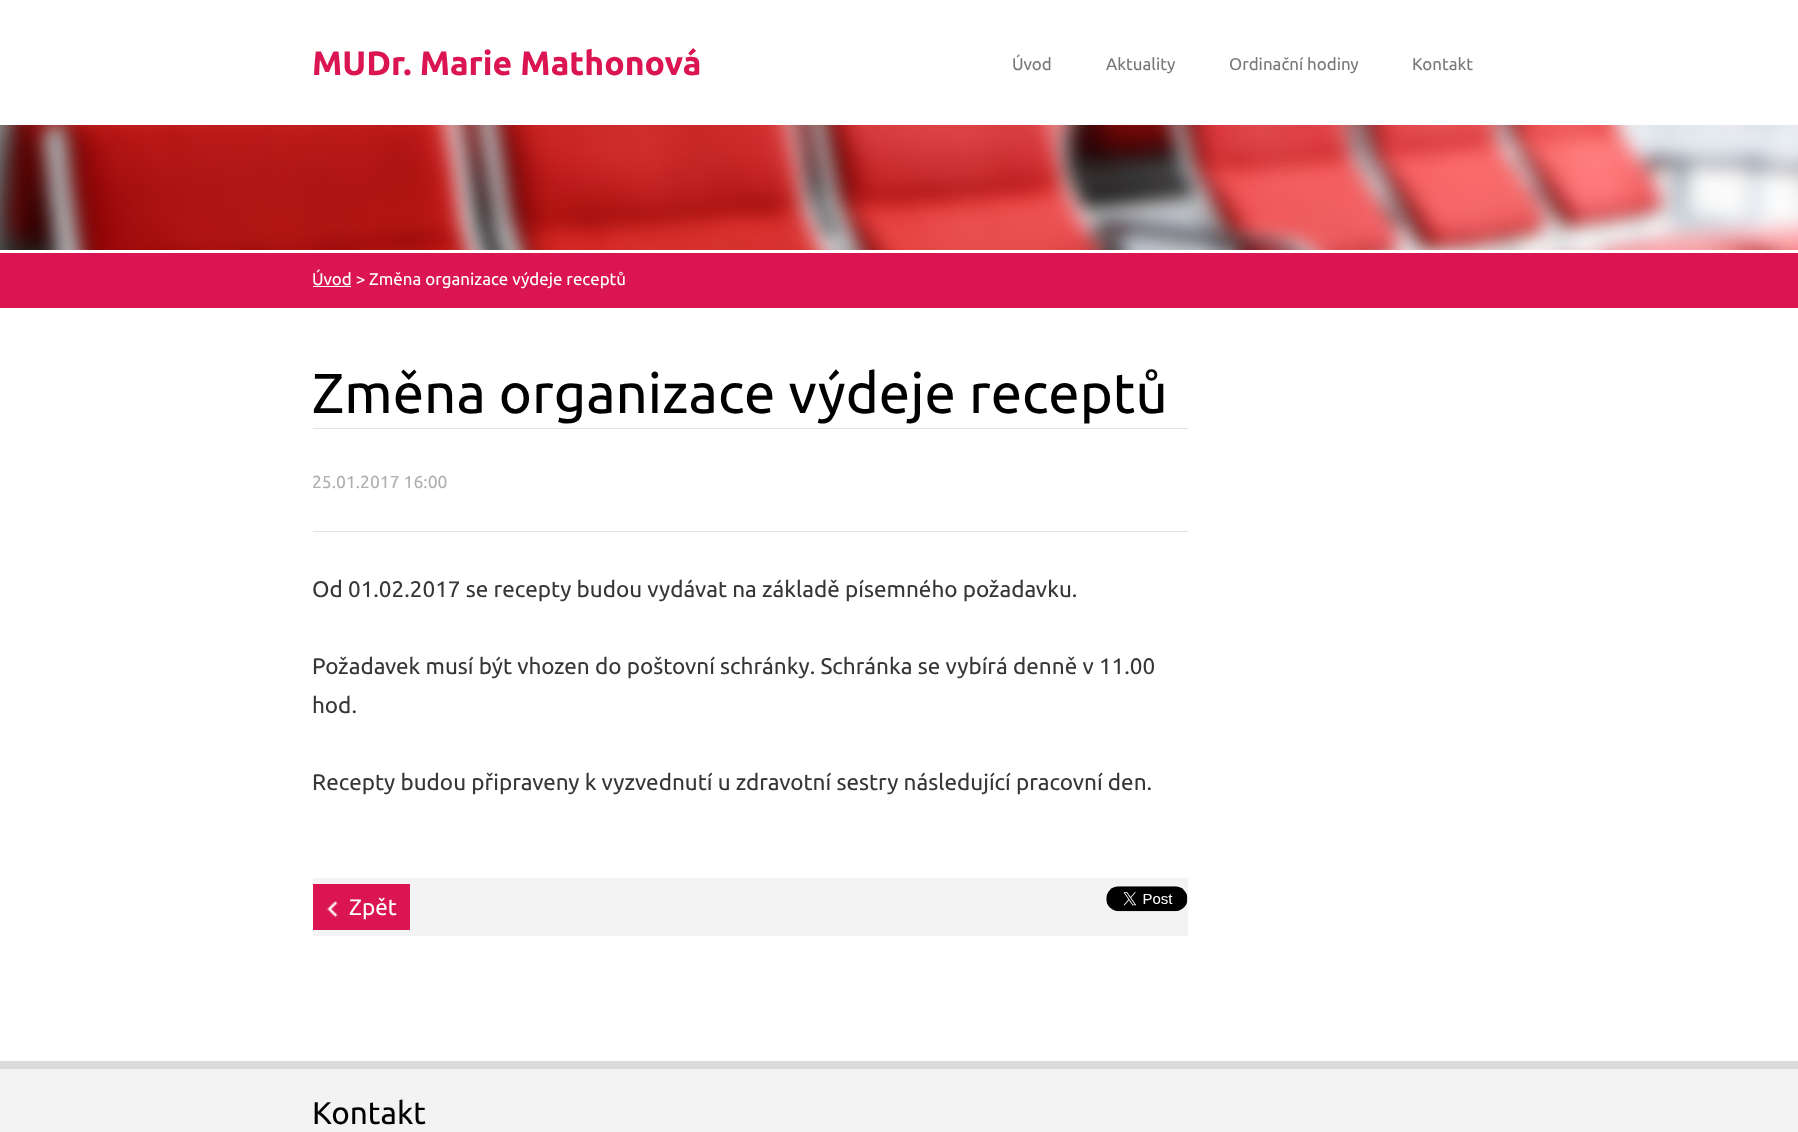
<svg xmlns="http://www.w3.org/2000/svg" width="1798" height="1132">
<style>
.a{font:bold 33.75px Ubuntu;fill:#da1551}
.b{font:16.9px Ubuntu;fill:#777}
.c{font:16.9px Ubuntu;fill:#fff}
.d{font:56.25px Ubuntu;fill:#000}
.e{font:17.5px Ubuntu;fill:#aeaeae}
.f{font:22.5px Ubuntu;fill:#363636}
.g{font:22.5px Ubuntu;fill:#fff}
.h{font:31.5px Ubuntu;fill:#000}
</style>
<rect width="100%" height="100%" fill="#fff"/>
<image href="1.png" x="0" y="125" width="1798" height="125"/>
<path fill="#da1551" d="M0 253h1798v55H0z"/>
<path fill="#fff" d="M313 286h38v1H313z"/>
<path fill="#e2e2e2" d="M313 428h875v1H313z"/>
<path fill="#e2e2e2" d="M313 531h875v1H313z"/>
<path fill="#f3f3f3" d="M313 878h875v58H313z"/>
<path fill="#da1551" d="M313 884h97v46H313z"/>
<image href="2.png" x="327" y="901" width="11" height="17"/>
<image href="3.png" x="1106" y="886" width="82" height="26"/>
<path fill="#f3f3f3" d="M0 1069h1798v63H0z"/>
<path fill="#dadada" d="M0 1061h1798v8H0z"/>
<text class="a" x="312" y="75">MUDr. Marie Mathonová</text>
<text class="b" x="1012" y="70">Úvod</text>
<text class="b" x="1106" y="70">Aktuality</text>
<text class="b" x="1229" y="70">Ordinační hodiny</text>
<text class="b" x="1412" y="70">Kontakt</text>
<text class="c" x="312" y="285">Úvod &gt; Změna organizace výdeje receptů</text>
<text class="d" x="312" y="413">Změna organizace výdeje receptů</text>
<text class="e" x="312" y="488">25.01.2017 16:00</text>
<text class="f" x="312" y="597">Od 01.02.2017 se recepty budou vydávat na základě písemného požadavku.</text>
<text class="f" x="312" y="674">Požadavek musí být vhozen do poštovní schránky. Schránka se vybírá denně v 11.00</text>
<text class="f" x="312" y="713">hod.</text>
<text class="f" x="312" y="790">Recepty budou připraveny k vyzvednutí u zdravotní sestry následující pracovní den.</text>
<text class="g" x="349" y="915">Zpět</text>
<text class="h" x="312" y="1124">Kontakt</text>
</svg>
